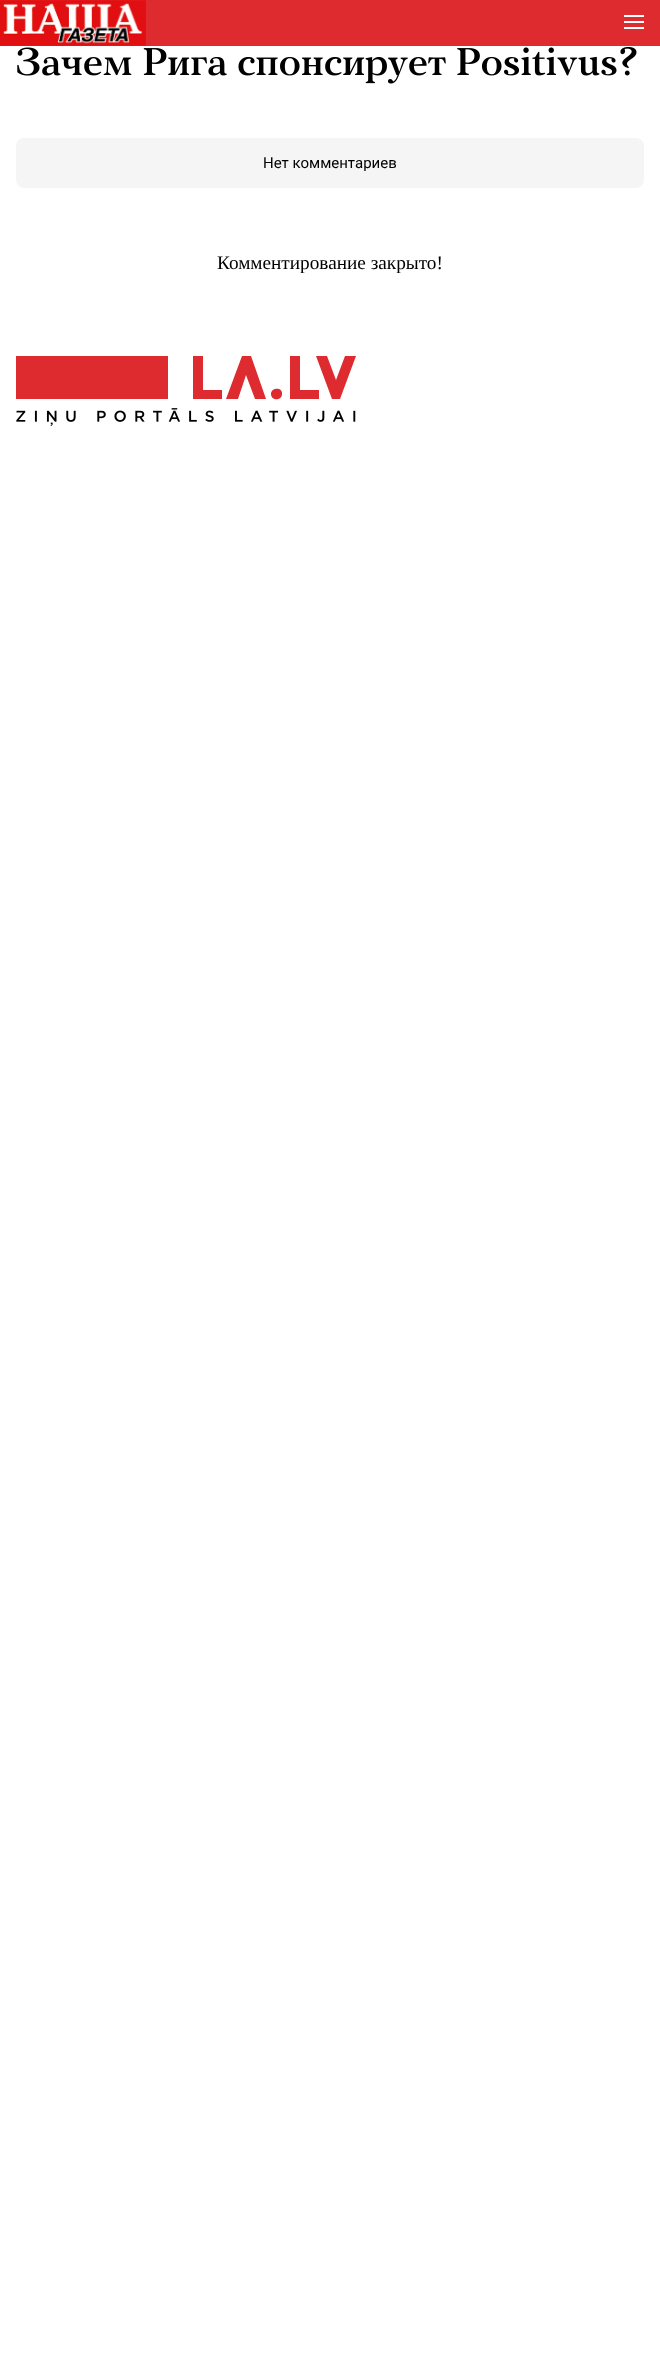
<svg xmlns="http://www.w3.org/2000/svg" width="660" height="2367">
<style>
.a{font:15px Roboto;fill:#000}
.b{font:19.25px Liberation Serif;fill:#000}
</style>
<rect width="100%" height="100%" fill="#fff"/>
<path fill="#dd2b30" d="M145 0h515v46H145z"/>
<image href="1.png" x="0" y="0" width="146" height="46"/>
<image href="2.png" x="624" y="15" width="20" height="14"/>
<image href="3.png" x="17" y="47" width="620" height="37"/>
<rect fill="#f5f5f5" x="16" y="138" width="628" height="50" rx="8"/>
<path fill="#dd2b30" fill-rule="evenodd" d="M271 394c0-7 12-7 11 0c0 7-11 7-11 0zm19 5v-43h10v34h19v9zm-39-43h-9l-16 43h12l8-24l9 24h11zm81 43h8l16-43h-11l-9 24l-9-24h-11zm-316 0h152v-43h-152zm177-43v43h29v-9h-19v-34z"/>
<image href="4.png" x="16" y="408" width="340" height="18"/>
<text class="a" x="263" y="168">Нет комментариев</text>
<text class="b" x="217" y="269">Комментирование закрыто!</text>
</svg>
